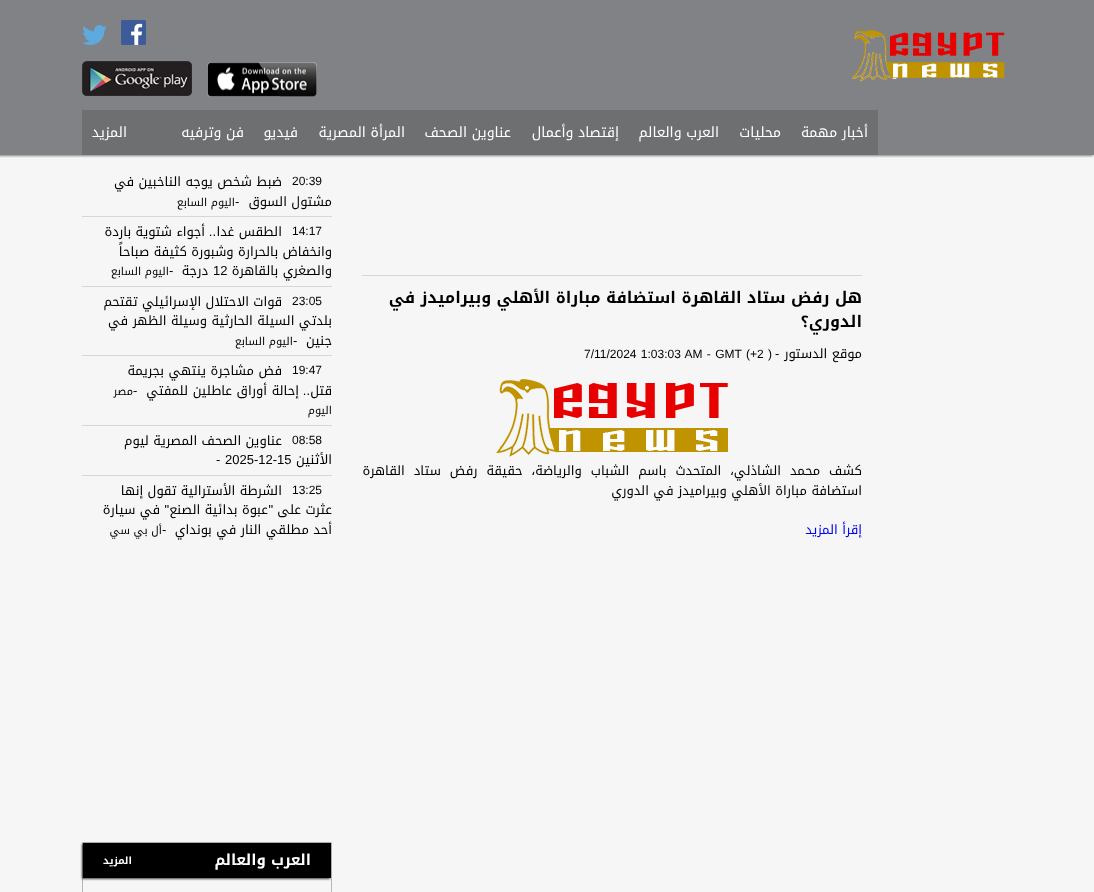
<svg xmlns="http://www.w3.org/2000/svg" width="1094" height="892">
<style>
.a{font:14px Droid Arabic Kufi;direction:rtl;fill:#fff}
.b{font:bold 16px Droid Arabic Kufi;direction:rtl;fill:#000}
.c{font:13px Droid Arabic Kufi;direction:rtl;fill:#000}
.d{font:13px Liberation Sans;fill:#000}
.e{font:12px Liberation Sans;fill:#000}
.f{font:13px Droid Arabic Kufi;direction:rtl;fill:#00e}
.g{font:11px Droid Arabic Kufi;direction:rtl;fill:#000}
.h{font:13px Liberation Sans;direction:rtl;fill:#000}
.i{font:bold 15px Droid Arabic Kufi;direction:rtl;fill:#fff}
.j{font:bold 10px Droid Arabic Kufi;direction:rtl;fill:#fff}
</style>
<rect width="100%" height="100%" fill="#f6f6f6"/>
<path fill="#00000078" filter="blur(1px)" d="M-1 1h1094v155H-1z"/>
<path fill="#808285" d="M0 0h1094v155H0z"/>
<image href="1.png" x="851" y="30" width="154" height="52"/>
<image href="2.png" x="207" y="62" width="110" height="35"/>
<image href="3.png" x="121" y="20" width="25" height="25"/>
<image href="4.png" x="82" y="25" width="25" height="20"/>
<image href="5.png" x="82" y="61" width="110" height="35"/>
<path fill="#6d6f71" d="M82 110h796v45H82z"/>
<path fill="#d6d6d6" d="M362 275h500v1H362z"/>
<image href="6.png" x="496" y="379" width="232" height="78"/>
<path fill="#d6d6d6" d="M82 216h250v1H82z"/>
<path fill="#d6d6d6" d="M82 286h250v1H82z"/>
<path fill="#d6d6d6" d="M82 355h250v1H82z"/>
<path fill="#d6d6d6" d="M82 425h250v1H82z"/>
<path fill="#d6d6d6" d="M82 475h250v1H82z"/>
<path fill="none" stroke="#b7b7b7" d="M82.5 842.5h249v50H82.5z"/>
<path fill="#000000bf" filter="blur(1px)" d="M82 844h248v35H82z"/>
<path fill="#000" d="M83 843h248v35H83z"/>
<text class="a" x="868" y="137">أخبار مهمة</text>
<text class="a" x="781" y="137">محليات</text>
<text class="a" x="719" y="137">العرب والعالم</text>
<text class="a" x="619" y="137">إقتصاد وأعمال</text>
<text class="a" x="511" y="137">عناوين الصحف</text>
<text class="a" x="405" y="137">المرأة المصرية</text>
<text class="a" x="298" y="137">فيديو</text>
<text class="a" x="244" y="137">فن وترفيه</text>
<text class="a" x="127" y="137">المزيد</text>
<text class="b" x="862" y="303">هل رفض ستاد القاهرة استضافة مباراة الأهلي وبيراميدز في</text>
<text class="b" x="862" y="327">الدوري؟</text>
<text class="c" x="862" y="358">موقع الدستور</text>
<text class="d" x="775" y="358">-</text>
<text class="e" x="584" y="358" word-spacing="1">7/11/2024 1:03:03 AM - GMT (+2 )</text>
<text class="c" x="862" y="475" word-spacing="4.5">كشف محمد الشاذلي، المتحدث باسم الشباب والرياضة، حقيقة رفض ستاد القاهرة</text>
<text class="c" x="862" y="495">استضافة مباراة الأهلي وبيراميدز في الدوري</text>
<text class="f" x="862" y="534">إقرأ المزيد</text>
<text class="e" x="292" y="185">20:39</text>
<text class="c" x="282" y="186">ضبط شخص يوجه الناخبين في</text>
<text class="c" x="332" y="206">مشتول السوق</text>
<text class="d" x="235" y="206">-</text>
<text class="g" x="235" y="206">اليوم السابع</text>
<text class="e" x="292" y="235">14:17</text>
<text class="c" x="282" y="236">الطقس غدا</text>
<text class="h" x="216" y="236">..</text>
<text class="c" x="205" y="236">أجواء شتوية باردة</text>
<text class="c" x="332" y="256">وانخفاض بالحرارة وشبورة كثيفة صباحاً</text>
<text class="c" x="332" y="275">والصغري بالقاهرة</text>
<text class="d" x="213" y="275">12</text>
<text class="c" x="208" y="275">درجة</text>
<text class="d" x="169" y="275">-</text>
<text class="g" x="169" y="275">اليوم السابع</text>
<text class="e" x="292" y="305">23:05</text>
<text class="c" x="282" y="306">قوات الاحتلال الإسرائيلي تقتحم</text>
<text class="c" x="332" y="325">بلدتي السيلة الحارثية وسيلة الظهر في</text>
<text class="c" x="332" y="345">جنين</text>
<text class="d" x="293" y="345">-</text>
<text class="g" x="293" y="345">اليوم السابع</text>
<text class="e" x="292" y="374">19:47</text>
<text class="c" x="282" y="375">فض</text>
<text class="c" x="254" y="375">مشاجرة</text>
<text class="c" x="206" y="375">ينتهي</text>
<text class="c" x="164" y="375">بجريمة</text>
<text class="c" x="332" y="395">قتل</text>
<text class="c" x="299" y="395">إحالة</text>
<text class="c" x="267" y="395">أوراق</text>
<text class="c" x="232" y="395">عاطلين</text>
<text class="c" x="188" y="395">للمفتي</text>
<text class="d" x="133" y="395">-</text>
<text class="g" x="133" y="395">مصر</text>
<text class="h" x="310" y="395">..</text>
<text class="g" x="332" y="414">اليوم</text>
<text class="e" x="292" y="444">08:58</text>
<text class="c" x="282" y="445">عناوين الصحف المصرية ليوم</text>
<text class="c" x="332" y="464">الأثنين</text>
<text class="d" x="225" y="464">2025-12-15</text>
<text class="d" x="216" y="464">-</text>
<text class="e" x="292" y="494">13:25</text>
<text class="c" x="282" y="495">الشرطة الأسترالية تقول إنها</text>
<text class="c" x="332" y="514">عثرت على</text>
<text class="h" x="273" y="514">"</text>
<text class="c" x="268" y="514">عبوة بدائية الصنع</text>
<text class="h" x="169" y="514">"</text>
<text class="c" x="160" y="514">في سيارة</text>
<text class="c" x="332" y="534">أحد مطلقي النار في بونداي</text>
<text class="d" x="162" y="534">-</text>
<text class="g" x="162" y="534">أل بي سي</text>
<text class="i" x="311" y="865">العرب والعالم</text>
<text class="j" x="132" y="864">المزيد</text>
</svg>
